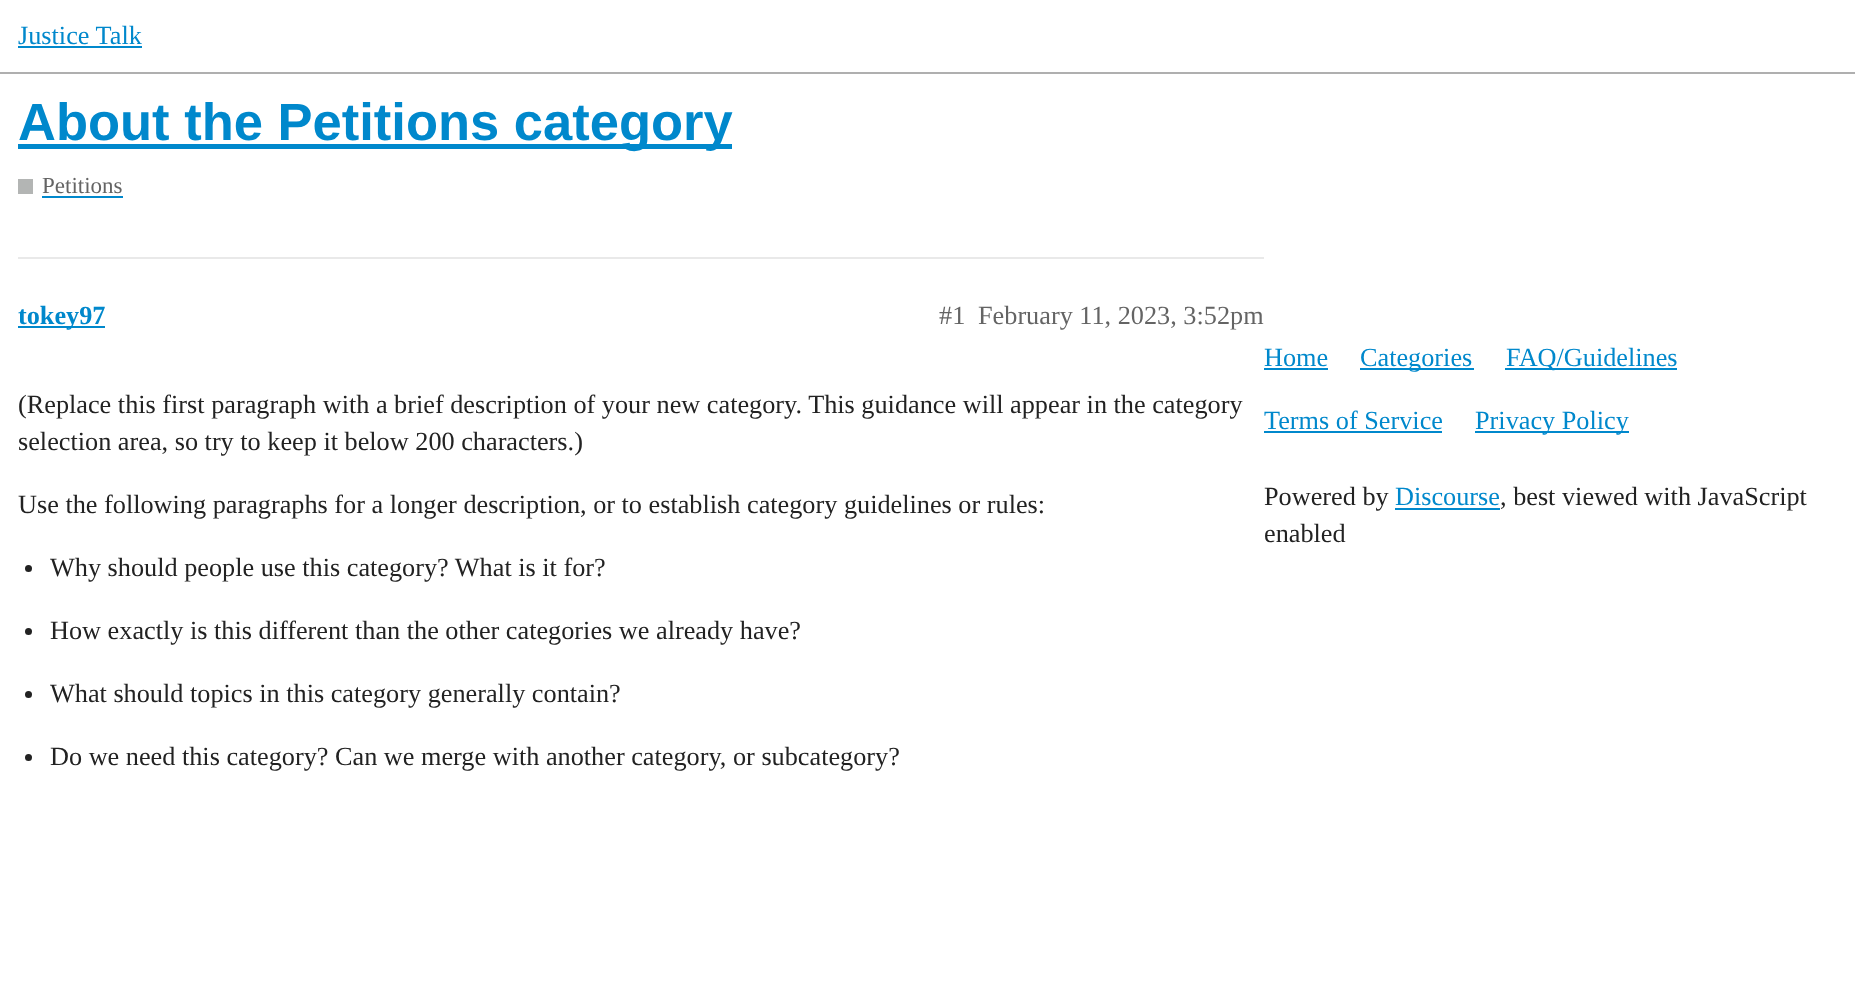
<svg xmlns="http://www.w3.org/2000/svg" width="1855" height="1003">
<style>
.a{font:26.25px Liberation Serif;fill:#08c}
.b{font:bold 52.5px Liberation Sans;fill:#08c}
.c{font:23px Liberation Serif;fill:#646464}
.d{font:bold 26.25px Liberation Serif;fill:#08c}
.e{font:26.25px Liberation Serif;fill:#646464}
.f{font:26.25px Liberation Serif;fill:#222}
</style>
<rect width="100%" height="100%" fill="#fff"/>
<path fill="#afafaf" d="M0 72h1855v2H0z"/>
<path fill="#08c" d="M18 46h124v2H18z"/>
<path fill="#08c" d="M18 144h714v5H18z"/>
<path fill="#b3b5b4" d="M18 179h15v15H18z"/>
<path fill="#08c" d="M42 196h81v2H42z"/>
<path fill="#e9e9e9" d="M18 257h1246v2H18z"/>
<path fill="#08c" d="M18 326h87v2H18z"/>
<circle fill="#222" cx="28.5" cy="568.5" r="3.5"/>
<circle fill="#222" cx="28.5" cy="631.5" r="3.5"/>
<circle fill="#222" cx="28.5" cy="694.5" r="3.5"/>
<circle fill="#222" cx="28.5" cy="757.5" r="3.5"/>
<path fill="#08c" d="M1264 368h64v2H1264z"/>
<path fill="#08c" d="M1360 368h114v2H1360z"/>
<path fill="#08c" d="M1505 368h172v2H1505z"/>
<path fill="#08c" d="M1264 431h178v2H1264z"/>
<path fill="#08c" d="M1475 431h154v2H1475z"/>
<path fill="#08c" d="M1395 508h105v2H1395z"/>
<text class="a" x="18" y="44">Justice Talk</text>
<text class="b" x="18" y="140">About the Petitions category</text>
<text class="c" x="42" y="193">Petitions</text>
<text class="d" x="18" y="324">tokey97</text>
<text class="e" x="939" y="324">#1</text>
<text class="e" x="978" y="324">February 11, 2023, 3:52pm</text>
<text class="f" x="18" y="413">(Replace this first paragraph with a brief description of your new category. This guidance will appear in the category</text>
<text class="f" x="18" y="450">selection area, so try to keep it below 200 characters.)</text>
<text class="f" x="18" y="513">Use the following paragraphs for a longer description, or to establish category guidelines or rules:</text>
<text class="f" x="50" y="576">Why should people use this category? What is it for?</text>
<text class="f" x="50" y="639">How exactly is this different than the other categories we already have?</text>
<text class="f" x="50" y="702">What should topics in this category generally contain?</text>
<text class="f" x="50" y="765">Do we need this category? Can we merge with another category, or subcategory?</text>
<text class="a" x="1264" y="366">Home</text>
<text class="a" x="1360" y="366">Categories</text>
<text class="a" x="1506" y="366">FAQ/Guidelines</text>
<text class="a" x="1264" y="429">Terms of Service</text>
<text class="a" x="1475" y="429">Privacy Policy</text>
<text class="f" x="1264" y="505">Powered by</text>
<text class="a" x="1395" y="505">Discourse</text>
<text class="f" x="1500" y="505">, best viewed with JavaScript</text>
<text class="f" x="1264" y="542">enabled</text>
</svg>
